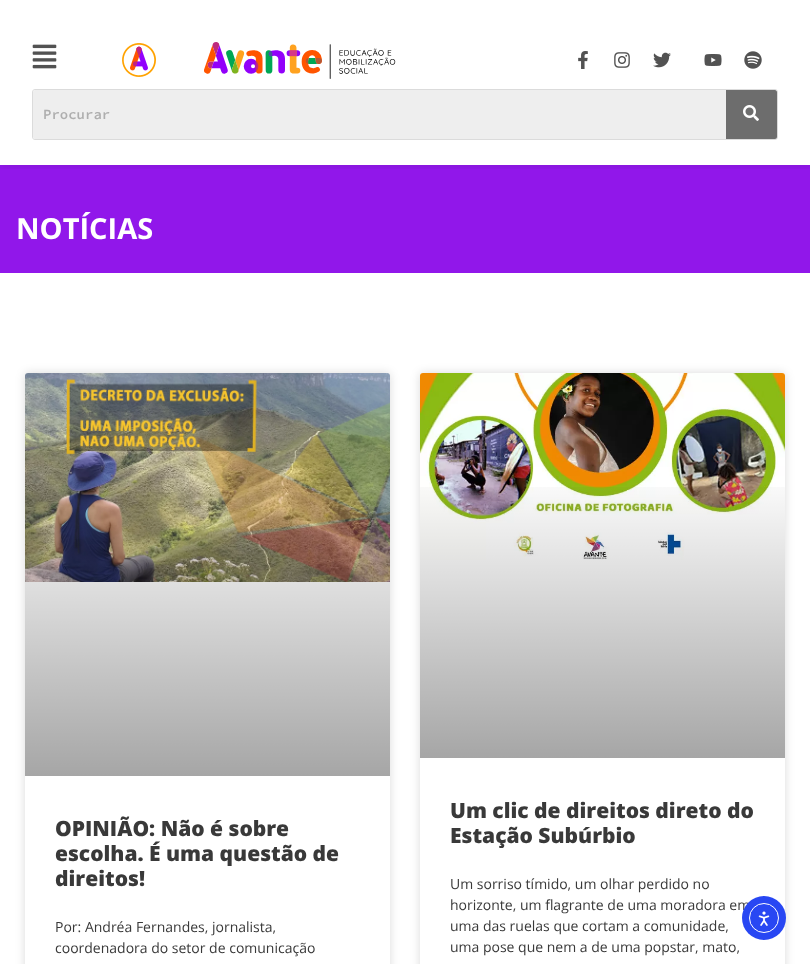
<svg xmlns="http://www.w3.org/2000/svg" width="810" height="964">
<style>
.a{font:600 14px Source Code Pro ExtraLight;fill:#aeaeae}
.b{font:bold 29px Open Sans;fill:#fff}
.c{font:800 21px Open Sans;fill:#393939}
.d{font:14px Open Sans;fill:#393939}
</style>
<defs>
<clipPath id="clip1"><path d="M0 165h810v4H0z"/></clipPath>
<linearGradient id="g1" gradientUnits="userSpaceOnUse" x1="208" y1="776" x2="208" y2="373"><stop offset="0" stop-color="#000" stop-opacity="0.35"/><stop offset="0.75" stop-color="#000" stop-opacity="0"/></linearGradient>
<linearGradient id="g2" gradientUnits="userSpaceOnUse" x1="603" y1="758" x2="603" y2="373"><stop offset="0" stop-color="#000" stop-opacity="0.35"/><stop offset="0.75" stop-color="#000" stop-opacity="0"/></linearGradient>
</defs>
<rect width="100%" height="100%" fill="#fff"/>
<path fill="#9117ea" d="M0 165h810v108H0z"/>
<g clip-path="url(#clip1)">
<path fill="#0000001a" filter="blur(5px)" d="M0 -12h810v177H0z"/>
</g>
<image href="1.png" x="32" y="44" width="25" height="25"/>
<image href="2.png" x="122" y="43" width="34" height="34"/>
<image href="3.png" x="204" y="42" width="192" height="37"/>
<image href="4.png" x="578" y="51" width="10" height="18"/>
<image href="5.png" x="614" y="52" width="16" height="16"/>
<image href="6.png" x="653" y="52" width="18" height="16"/>
<image href="7.png" x="704" y="54" width="18" height="12"/>
<image href="8.png" x="744" y="51" width="18" height="18"/>
<rect fill="none" stroke="#dbdbdb" x="32.5" y="89.5" width="745" height="50" rx="2.5"/>
<path fill="#eee" d="M35 90h691v49h-691c-1 0-2-1-2-2v-45c0-1 1-2 2-2z"/>
<path fill="#6d6d6d" d="M726 90h49c1 0 2 1 2 2v45c0 1-1 2-2 2h-49z"/>
<image href="9.png" x="743" y="105" width="16" height="16"/>
<rect fill="#00000026" filter="blur(5px)" x="25" y="373" width="365" height="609" rx="3"/>
<rect fill="#fff" x="25" y="373" width="365" height="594" rx="3"/>
<image href="10.png" x="25" y="373" width="365" height="209"/>
<path fill="url(#g1)" d="M25 492h365v284H25z"/>
<rect fill="#00000026" filter="blur(5px)" x="420" y="373" width="365" height="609" rx="3"/>
<rect fill="#fff" x="420" y="373" width="365" height="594" rx="3"/>
<image href="11.png" x="420" y="373" width="365" height="187"/>
<path fill="url(#g2)" d="M420 487h365v271H420z"/>
<text class="a" x="43" y="119">Procurar</text>
<text class="b" x="16" y="239">NOTÍCIAS</text>
<text class="c" x="55" y="836">OPINIÃO: Não é sobre</text>
<text class="c" x="55" y="861">escolha. É uma questão de</text>
<text class="c" x="55" y="886">direitos!</text>
<text class="d" x="55" y="932">Por: Andréa Fernandes, jornalista,</text>
<text class="d" x="55" y="953">coordenadora do setor de comunicação</text>
<text class="c" x="450" y="818">Um clic de direitos direto do</text>
<text class="c" x="450" y="843">Estação Subúrbio</text>
<text class="d" x="450" y="889">Um sorriso tímido, um olhar perdido no</text>
<text class="d" x="450" y="910">horizonte, um flagrante de uma moradora em</text>
<text class="d" x="450" y="931">uma das ruelas que cortam a comunidade,</text>
<text class="d" x="450" y="952">uma pose que nem a de uma popstar, mato,</text>
<circle fill="#2847f3" cx="764" cy="918" r="22"/>
<circle fill="none" stroke="#fff" cx="764" cy="918" r="14.5"/>
<image href="12.png" x="758" y="911" width="12" height="15"/>
</svg>
